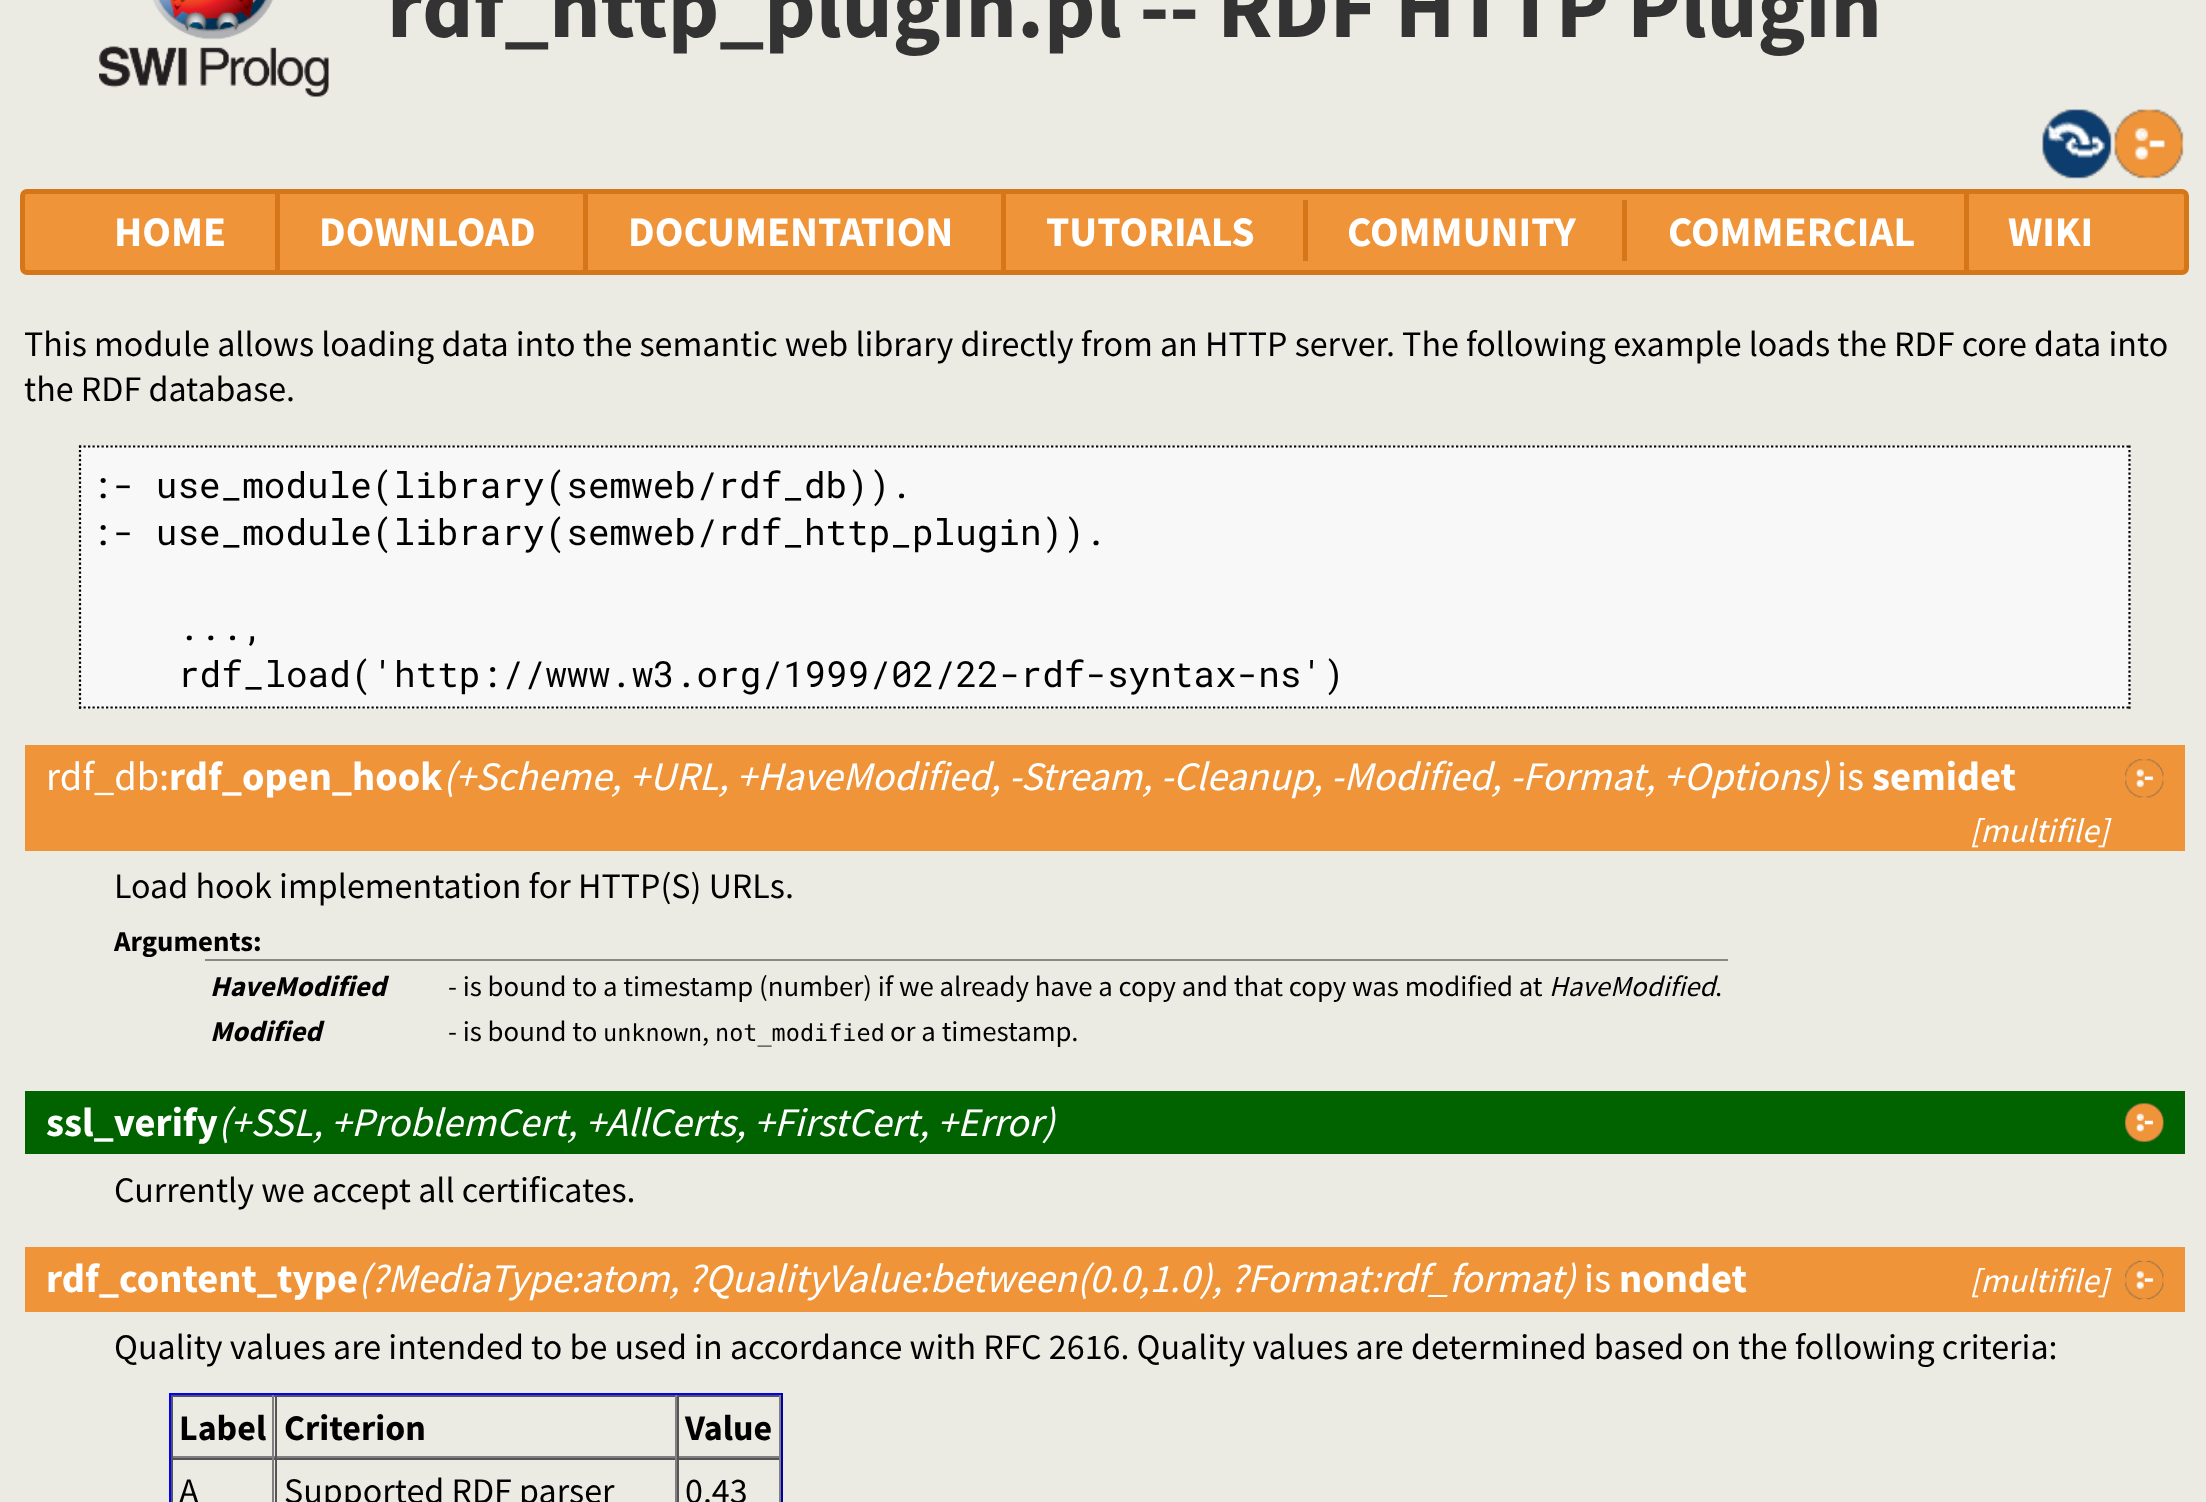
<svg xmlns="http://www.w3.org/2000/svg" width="2206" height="1502">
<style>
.a{font:bold 90px Source Sans Pro;fill:#333}
.b{font:bold 42px Source Sans Pro;fill:#fff}
.c{font:36px Source Sans Pro;fill:#000}
.d{font:36px Roboto Mono;fill:#000}
.e{font:40.5px Source Sans Pro;fill:#fff}
.f{font:bold 40.5px Source Sans Pro;fill:#fff}
.g{font:italic 40.5px Source Sans Pro;fill:#fff}
.h{font:italic 33.75px Source Sans Pro;fill:#fff}
.i{font:bold 28.8px Source Sans Pro;fill:#000}
.j{font:italic bold 28.8px Source Sans Pro;fill:#000}
.k{font:28.8px Source Sans Pro;fill:#000}
.l{font:italic 28.8px Source Sans Pro;fill:#000}
.m{font:23.5px DejaVu Sans Mono;fill:#000}
.n{font:bold 36px Source Sans Pro;fill:#000}
</style>
<rect width="100%" height="100%" fill="#ecebe3"/>
<image href="1.png" x="99" y="0" width="230" height="97"/>
<image href="2.png" x="2042" y="109" width="70" height="70"/>
<image href="3.png" x="2114" y="109" width="70" height="70"/>
<rect fill="#ef9439" stroke="#d57719" stroke-width="5" x="22.5" y="191.5" width="2164" height="81" rx="4.5"/>
<path fill="#d57719" d="M275 194h5v76H275z"/>
<path fill="#d57719" d="M583 194h5v76H583z"/>
<path fill="#d57719" d="M1001 194h5v76H1001z"/>
<path fill="#d57719" d="M1303 200h5v61H1303z"/>
<path fill="#d57719" d="M1622 200h5v61H1622z"/>
<path fill="#d57719" d="M1964 194h5v76H1964z"/>
<path fill="#f8f8f8" d="M79 446h2052v263H79z"/>
<path fill="none" stroke="#000" stroke-width="2.2" stroke-dasharray="2.25 2.25" d="M79 446.5h2052"/>
<path fill="none" stroke="#000" stroke-width="2.2" stroke-dasharray="2.25 2.25" d="M2129.5 445.5v263.5"/>
<path fill="none" stroke="#000" stroke-width="2.2" stroke-dasharray="2.25 2.25" d="M79 707.5h2052"/>
<path fill="none" stroke="#000" stroke-width="2.2" stroke-dasharray="2.25 2.25" d="M80 445.5v263.5"/>
<path fill="#ef9439" d="M25 745h2160v106H25z"/>
<image href="4.png" x="2125" y="759" width="39" height="39"/>
<path fill="#888" d="M205 959h1523v2H205z"/>
<path fill="#016300" d="M25 1091h2160v63H25z"/>
<image href="5.png" x="2125" y="1103" width="39" height="39"/>
<path fill="#ef9439" d="M25 1247h2160v65H25z"/>
<image href="6.png" x="2125" y="1260" width="39" height="40"/>
<path fill="#00f" d="M169 1393h614v2H169z"/>
<path fill="#00a" d="M781 1393h2v109H781z"/>
<path fill="#00f" d="M169 1393h2v109H169z"/>
<path fill="#555" d="M171 1395h610v2H171z"/>
<path fill="#808080" d="M272 1395h2v63H272z"/>
<path fill="#808080" d="M171 1456h104v2H171z"/>
<path fill="#555" d="M171 1395h2v63H171z"/>
<path fill="#808080" d="M675 1395h2v63H675z"/>
<path fill="#808080" d="M275 1456h402v2H275z"/>
<path fill="#555" d="M275 1395h2v63H275z"/>
<path fill="#808080" d="M779 1395h2v63H779z"/>
<path fill="#808080" d="M677 1456h104v2H677z"/>
<path fill="#555" d="M677 1395h2v63H677z"/>
<path fill="#555" d="M171 1458h610v2H171z"/>
<path fill="#808080" d="M272 1458h2v44H272z"/>
<path fill="#555" d="M171 1458h2v44H171z"/>
<path fill="#808080" d="M675 1458h2v44H675z"/>
<path fill="#555" d="M275 1458h2v44H275z"/>
<path fill="#808080" d="M779 1458h2v44H779z"/>
<path fill="#555" d="M677 1458h2v44H677z"/>
<text class="a" x="387" y="37">rdf_http_plugin.pl -- RDF HTTP Plugin</text>
<text class="b" x="114" y="246">HOME</text>
<text class="b" x="319" y="246">DOWNLOAD</text>
<text class="b" x="628" y="246">DOCUMENTATION</text>
<text class="b" x="1046" y="246">TUTORIALS</text>
<text class="b" x="1347" y="246">COMMUNITY</text>
<text class="b" x="1668" y="246">COMMERCIAL</text>
<text class="b" x="2008" y="246">WIKI</text>
<text class="c" x="24" y="356">This module allows loading data into the semantic web library directly from an HTTP server. The following example loads the RDF core data into</text>
<text class="c" x="24" y="401">the RDF database.</text>
<text class="d" x="91" y="498">:- use_module(library(semweb/rdf_db)).</text>
<text class="d" x="91" y="545">:- use_module(library(semweb/rdf_http_plugin)).</text>
<text class="d" x="178" y="640">...,</text>
<text class="d" x="178" y="687">rdf_load('http://www.w3.org/1999/02/22-rdf-syntax-ns')</text>
<text class="e" x="46" y="790">rdf_db:</text>
<text class="f" x="169" y="790">rdf_open_hook</text>
<text class="g" x="443" y="790">(+Scheme, +URL, +HaveModified, -Stream, -Cleanup, -Modified, -Format, +Options)</text>
<text class="e" x="1837" y="790">is</text>
<text class="f" x="1872" y="790">semidet</text>
<text class="h" x="1970" y="842">[multifile]</text>
<text class="c" x="114" y="898">Load hook implementation for HTTP(S) URLs.</text>
<text class="i" x="114" y="951">Arguments:</text>
<text class="j" x="210" y="996">HaveModified</text>
<text class="k" x="448" y="996">- is bound to a timestamp (number) if we already have a copy and that copy was modified at</text>
<text class="l" x="1549" y="996">HaveModified</text>
<text class="k" x="1715" y="996">.</text>
<text class="j" x="210" y="1041">Modified</text>
<text class="k" x="448" y="1041">- is bound to</text>
<text class="m" x="603" y="1041">unknown</text>
<text class="k" x="702" y="1041">,</text>
<text class="m" x="715" y="1041">not_modified</text>
<text class="k" x="890" y="1041">or a timestamp.</text>
<text class="f" x="46" y="1136">ssl_verify</text>
<text class="g" x="218" y="1136">(+SSL, +ProblemCert, +AllCerts, +FirstCert, +Error)</text>
<text class="c" x="114" y="1202">Currently we accept all certificates.</text>
<text class="f" x="46" y="1292">rdf_content_type</text>
<text class="g" x="358" y="1292">(?MediaType:atom, ?QualityValue:between(0.0,1.0), ?Format:rdf_format)</text>
<text class="e" x="1584" y="1292">is</text>
<text class="f" x="1619" y="1292">nondet</text>
<text class="h" x="1970" y="1292">[multifile]</text>
<text class="c" x="114" y="1359">Quality values are intended to be used in accordance with RFC 2616. Quality values are determined based on the following criteria:</text>
<text class="n" x="179" y="1440">Label</text>
<text class="n" x="284" y="1440">Criterion</text>
<text class="n" x="685" y="1440">Value</text>
<text class="c" x="179" y="1503">A</text>
<text class="c" x="284" y="1503">Supported RDF parser</text>
<text class="c" x="685" y="1503">0.43</text>
</svg>
